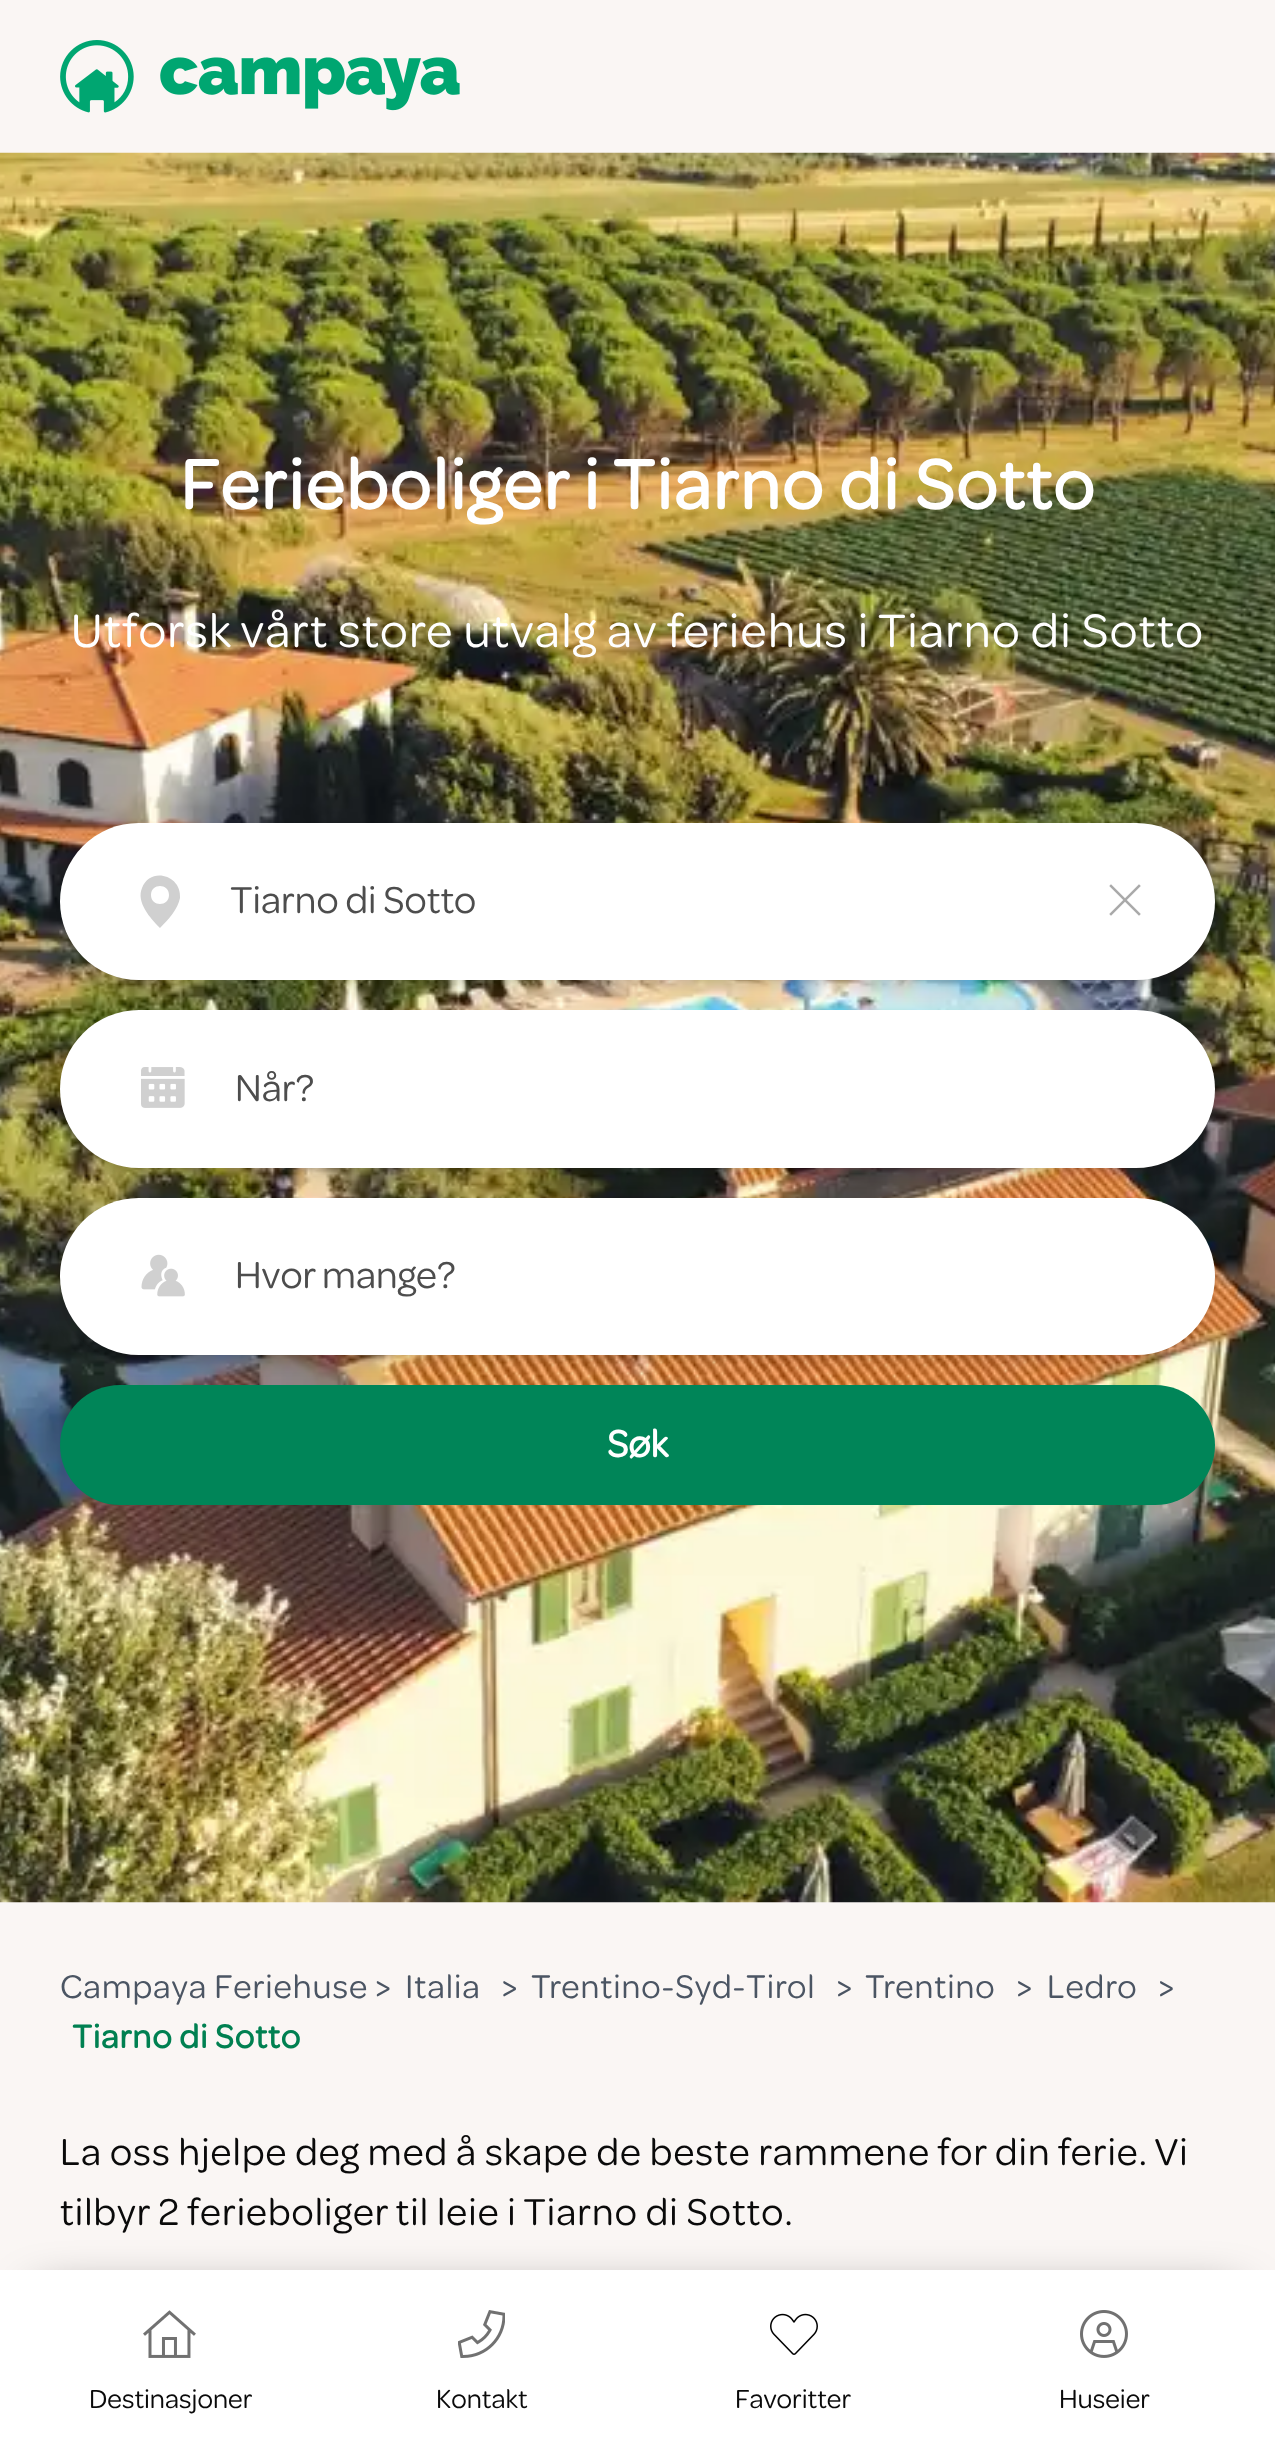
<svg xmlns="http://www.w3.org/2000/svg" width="1275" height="2448">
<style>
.a{font:bold 74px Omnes;letter-spacing:1.85px;fill:#fff}
.b{font:50px Omnes;letter-spacing:1.25px;fill:#fff}
.c{font:40px Omnes;fill:#4d4d4d}
.d{font:bold 40px Omnes;fill:#fff}
.e{font:35px Omnes;letter-spacing:0.9px;fill:#4b5563}
.f{font:bold 35px Omnes;letter-spacing:0.9px;fill:#008051}
.g{font:40px Omnes;letter-spacing:1px;fill:#0a0a0a}
.h{font:28px Omnes;fill:#0a0a0a}
</style>
<rect width="100%" height="100%" fill="#faf6f4"/>
<image href="1.png" x="60" y="40" width="400" height="73"/>
<image href="2.png" x="0" y="152" width="1275" height="1751"/>
<rect fill="#0000001a" filter="blur(5px)" x="65" y="833" width="1145" height="147" rx="73.5"/>
<rect fill="#0000001a" filter="blur(5px)" x="65" y="1020" width="1145" height="148" rx="74"/>
<rect fill="#0000001a" filter="blur(7.5px)" x="63" y="1023" width="1150" height="152" rx="76"/>
<rect fill="#fff" x="60" y="1010" width="1155" height="158" rx="79"/>
<rect fill="#0000001a" filter="blur(7.5px)" x="63" y="835" width="1150" height="153" rx="76.5"/>
<rect fill="#fff" x="60" y="823" width="1155" height="157" rx="78.5"/>
<path fill="#d0d0d0" d="M160 928c-10-10-24-26-18-40c8-22 40-13 38 10c-2 11-12 22-20 30zm9-33c0-12-18-12-18 0c0 12 18 12 18 0z"/>
<image href="3.png" x="1109" y="884" width="32" height="32"/>
<image href="4.png" x="141" y="1067" width="44" height="41"/>
<rect fill="#0000001a" filter="blur(5px)" x="65" y="1208" width="1145" height="147" rx="73.5"/>
<rect fill="#0000001a" filter="blur(7.5px)" x="63" y="1210" width="1150" height="153" rx="76.5"/>
<rect fill="#fff" x="60" y="1198" width="1155" height="157" rx="78.5"/>
<image href="5.png" x="141" y="1254" width="44" height="43"/>
<rect fill="#008558" x="60" y="1385" width="1155" height="120" rx="60"/>
<path fill="#00000099" filter="blur(25px)" d="M38 2298h1200v105H38z"/>
<path fill="#fff" d="M0 2270h1275v178H0z"/>
<image href="6.png" x="143" y="2310" width="53" height="48"/>
<image href="7.png" x="458" y="2310" width="47" height="48"/>
<image href="8.png" x="770" y="2313" width="48" height="42"/>
<image href="9.png" x="1080" y="2310" width="48" height="48"/>
<text class="a" x="180" y="509">Ferieboliger i Tiarno di Sotto</text>
<text class="b" x="71" y="647">Utforsk vårt store utvalg av feriehus i Tiarno di Sotto</text>
<text class="c" x="230" y="913">Tiarno di Sotto</text>
<text class="c" x="235" y="1101">Når?</text>
<text class="c" x="235" y="1288">Hvor mange?</text>
<text class="d" x="607" y="1457">Søk</text>
<text class="e" x="60" y="1998">Campaya Feriehuse &gt;</text>
<text class="e" xml:space="preserve" x="405" y="1998">Italia   &gt;</text>
<text class="e" xml:space="preserve" x="531" y="1998">Trentino-Syd-Tirol   &gt;</text>
<text class="e" xml:space="preserve" x="865" y="1998">Trentino   &gt;</text>
<text class="e" xml:space="preserve" x="1047" y="1998">Ledro   &gt;</text>
<text class="f" x="72" y="2048">Tiarno di Sotto</text>
<text class="g" x="60" y="2165">La oss hjelpe deg med å skape de beste rammene for din ferie. Vi</text>
<text class="g" x="60" y="2225">tilbyr 2 ferieboliger til leie i Tiarno di Sotto.</text>
<text class="h" x="89" y="2408">Destinasjoner</text>
<text class="h" x="436" y="2408">Kontakt</text>
<text class="h" x="735" y="2408">Favoritter</text>
<text class="h" x="1059" y="2408">Huseier</text>
</svg>
